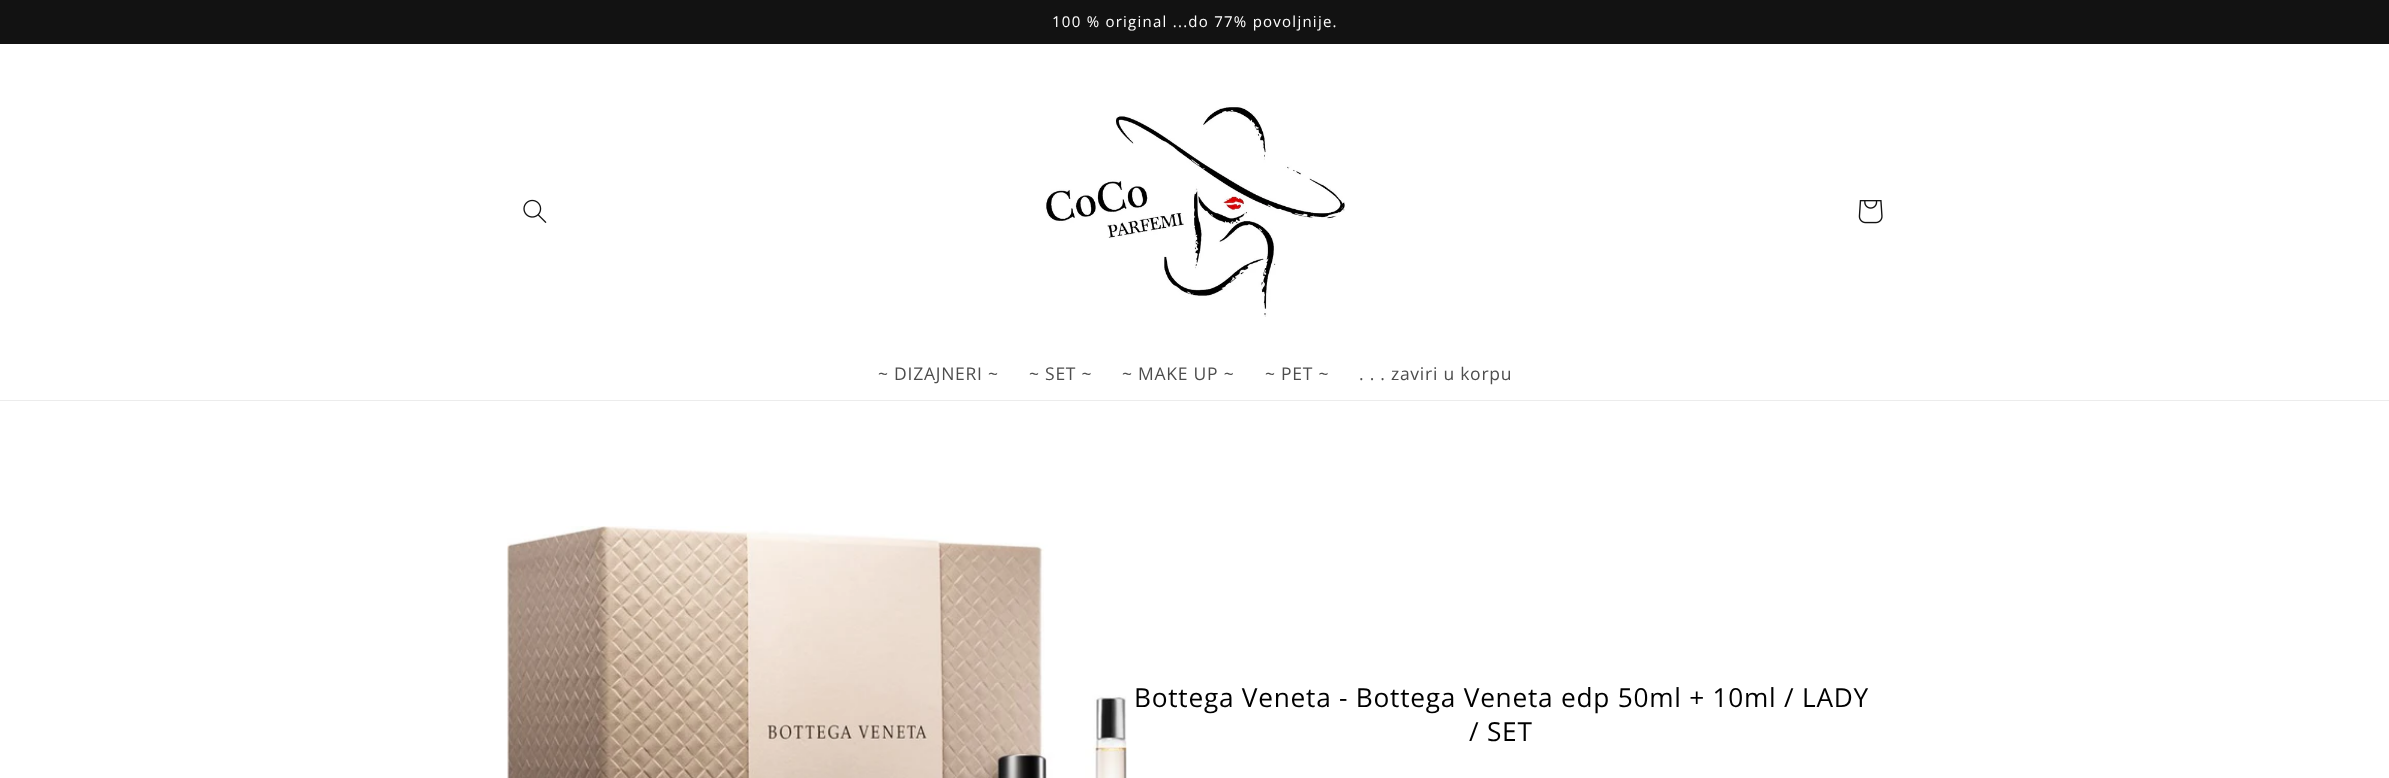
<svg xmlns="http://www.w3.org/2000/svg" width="2389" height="778">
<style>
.a{font:15px Open Sans;letter-spacing:1.25px;fill:#fff}
.b{font:17.5px Open Sans;letter-spacing:0.75px;fill:#4d4d4d}
.c{font:26.25px Open Sans;letter-spacing:0.75px;fill:#000}
</style>
<rect width="100%" height="100%" fill="#fff"/>
<path fill="#121212" d="M0 0h2389v44H0z"/>
<path fill="#ececec" d="M0 400h2389v1H0z"/>
<image href="1.png" x="523" y="199" width="24" height="24"/>
<image href="2.png" x="1045" y="105" width="300" height="212"/>
<image href="3.png" x="1858" y="200" width="25" height="24"/>
<image href="4.png" x="507" y="526" width="620" height="252"/>
<text class="a" x="1052" y="27">100 % original ...do 77% povoljnije.</text>
<text class="b" x="878" y="380">~ DIZAJNERI ~</text>
<text class="b" x="1029" y="380">~ SET ~</text>
<text class="b" x="1122" y="380">~ MAKE UP ~</text>
<text class="b" x="1265" y="380">~ PET ~</text>
<text class="b" x="1359" y="380">. . . zaviri u korpu</text>
<text class="c" x="1134" y="707">Bottega Veneta - Bottega Veneta edp 50ml + 10ml / LADY</text>
<text class="c" x="1469" y="741">/ SET</text>
</svg>
